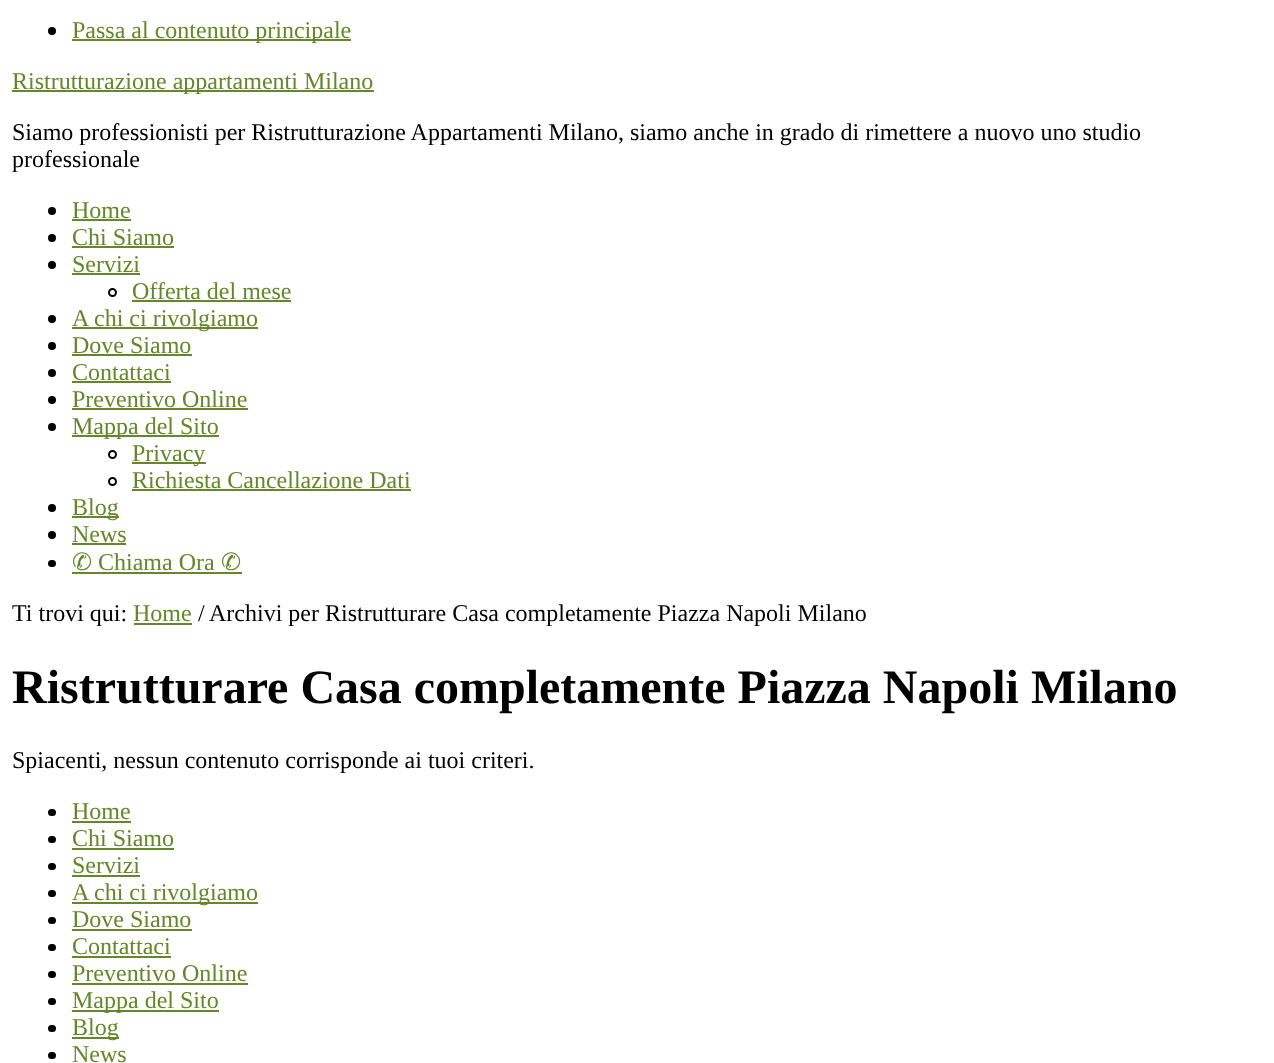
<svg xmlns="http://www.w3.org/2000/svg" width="1274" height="1063">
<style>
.a{font:24px Liberation Serif;fill:#638729}
.b{font:24px Liberation Serif;fill:#000}
.c{font:24px DejaVu Sans;fill:#638729}
.d{font:bold 48px Liberation Serif;fill:#000}
</style>
<rect width="100%" height="100%" fill="#fff"/>
<circle fill="#000" cx="52" cy="31" r="4"/>
<path fill="#638729" d="M72 39h279v2H72z"/>
<path fill="#638729" d="M12 90h362v2H12z"/>
<circle fill="#000" cx="52" cy="211" r="4"/>
<path fill="#638729" d="M72 219h59v2H72z"/>
<circle fill="#000" cx="52" cy="238" r="4"/>
<path fill="#638729" d="M72 246h102v2H72z"/>
<circle fill="#000" cx="52" cy="265" r="4"/>
<path fill="#638729" d="M72 273h68v2H72z"/>
<circle fill="none" stroke="#000" stroke-width="2" cx="112.5" cy="292.5" r="3.5"/>
<path fill="#638729" d="M132 300h159v2H132z"/>
<circle fill="#000" cx="52" cy="319" r="4"/>
<path fill="#638729" d="M72 327h186v2H72z"/>
<circle fill="#000" cx="52" cy="346" r="4"/>
<path fill="#638729" d="M72 354h120v2H72z"/>
<circle fill="#000" cx="52" cy="373" r="4"/>
<path fill="#638729" d="M72 381h99v2H72z"/>
<circle fill="#000" cx="52" cy="400" r="4"/>
<path fill="#638729" d="M72 408h176v2H72z"/>
<circle fill="#000" cx="52" cy="427" r="4"/>
<path fill="#638729" d="M72 435h147v2H72z"/>
<circle fill="none" stroke="#000" stroke-width="2" cx="112.5" cy="454.5" r="3.5"/>
<path fill="#638729" d="M132 462h74v2H132z"/>
<circle fill="none" stroke="#000" stroke-width="2" cx="112.5" cy="481.5" r="3.5"/>
<path fill="#638729" d="M132 489h279v2H132z"/>
<circle fill="#000" cx="52" cy="508" r="4"/>
<path fill="#638729" d="M72 516h47v2H72z"/>
<circle fill="#000" cx="52" cy="535" r="4"/>
<path fill="#638729" d="M72 543h54v2H72z"/>
<rect fill="#000" x="48" y="560" width="8" height="7" rx="3.5"/>
<path fill="#638729" d="M72 572h170v2H72z"/>
<path fill="#638729" d="M134 623h58v2H134z"/>
<rect fill="#000" x="48" y="809" width="8" height="7" rx="3.5"/>
<path fill="#638729" d="M72 821h59v2H72z"/>
<rect fill="#000" x="48" y="836" width="8" height="7" rx="3.5"/>
<path fill="#638729" d="M72 848h102v2H72z"/>
<rect fill="#000" x="48" y="863" width="8" height="7" rx="3.5"/>
<path fill="#638729" d="M72 875h68v2H72z"/>
<rect fill="#000" x="48" y="890" width="8" height="7" rx="3.5"/>
<path fill="#638729" d="M72 902h186v2H72z"/>
<rect fill="#000" x="48" y="917" width="8" height="7" rx="3.5"/>
<path fill="#638729" d="M72 929h120v2H72z"/>
<rect fill="#000" x="48" y="944" width="8" height="7" rx="3.5"/>
<path fill="#638729" d="M72 956h99v2H72z"/>
<rect fill="#000" x="48" y="971" width="8" height="7" rx="3.5"/>
<path fill="#638729" d="M72 983h176v2H72z"/>
<rect fill="#000" x="48" y="998" width="8" height="7" rx="3.5"/>
<path fill="#638729" d="M72 1010h147v2H72z"/>
<rect fill="#000" x="48" y="1025" width="8" height="7" rx="3.5"/>
<path fill="#638729" d="M72 1037h47v2H72z"/>
<rect fill="#000" x="48" y="1052" width="8" height="7" rx="3.5"/>
<text class="a" x="72" y="38">Passa al contenuto principale</text>
<text class="a" x="12" y="89">Ristrutturazione appartamenti Milano</text>
<text class="b" x="12" y="140">Siamo professionisti per Ristrutturazione Appartamenti Milano, siamo anche in grado di rimettere a nuovo uno studio</text>
<text class="b" x="12" y="167">professionale</text>
<text class="a" x="72" y="218">Home</text>
<text class="a" x="72" y="245">Chi Siamo</text>
<text class="a" x="72" y="272">Servizi</text>
<text class="a" x="132" y="299">Offerta del mese</text>
<text class="a" x="72" y="326">A chi ci rivolgiamo</text>
<text class="a" x="72" y="353">Dove Siamo</text>
<text class="a" x="72" y="380">Contattaci</text>
<text class="a" x="72" y="407">Preventivo Online</text>
<text class="a" x="72" y="434">Mappa del Sito</text>
<text class="a" x="132" y="461">Privacy</text>
<text class="a" x="132" y="488">Richiesta Cancellazione Dati</text>
<text class="a" x="72" y="515">Blog</text>
<text class="a" x="72" y="542">News</text>
<text class="c" x="72" y="570">✆</text>
<text class="a" x="98" y="570">Chiama Ora</text>
<text class="c" x="221" y="570">✆</text>
<text class="b" x="12" y="621">Ti trovi qui:</text>
<text class="a" x="133" y="621">Home</text>
<text class="b" x="198" y="621">/</text>
<text class="b" x="209" y="621">Archivi per Ristrutturare Casa completamente Piazza Napoli Milano</text>
<text class="d" x="12" y="703">Ristrutturare Casa completamente Piazza Napoli Milano</text>
<text class="b" x="12" y="768">Spiacenti, nessun contenuto corrisponde ai tuoi criteri.</text>
<text class="a" x="72" y="819">Home</text>
<text class="a" x="72" y="846">Chi Siamo</text>
<text class="a" x="72" y="873">Servizi</text>
<text class="a" x="72" y="900">A chi ci rivolgiamo</text>
<text class="a" x="72" y="927">Dove Siamo</text>
<text class="a" x="72" y="954">Contattaci</text>
<text class="a" x="72" y="981">Preventivo Online</text>
<text class="a" x="72" y="1008">Mappa del Sito</text>
<text class="a" x="72" y="1035">Blog</text>
<text class="a" x="72" y="1062">News</text>
</svg>
